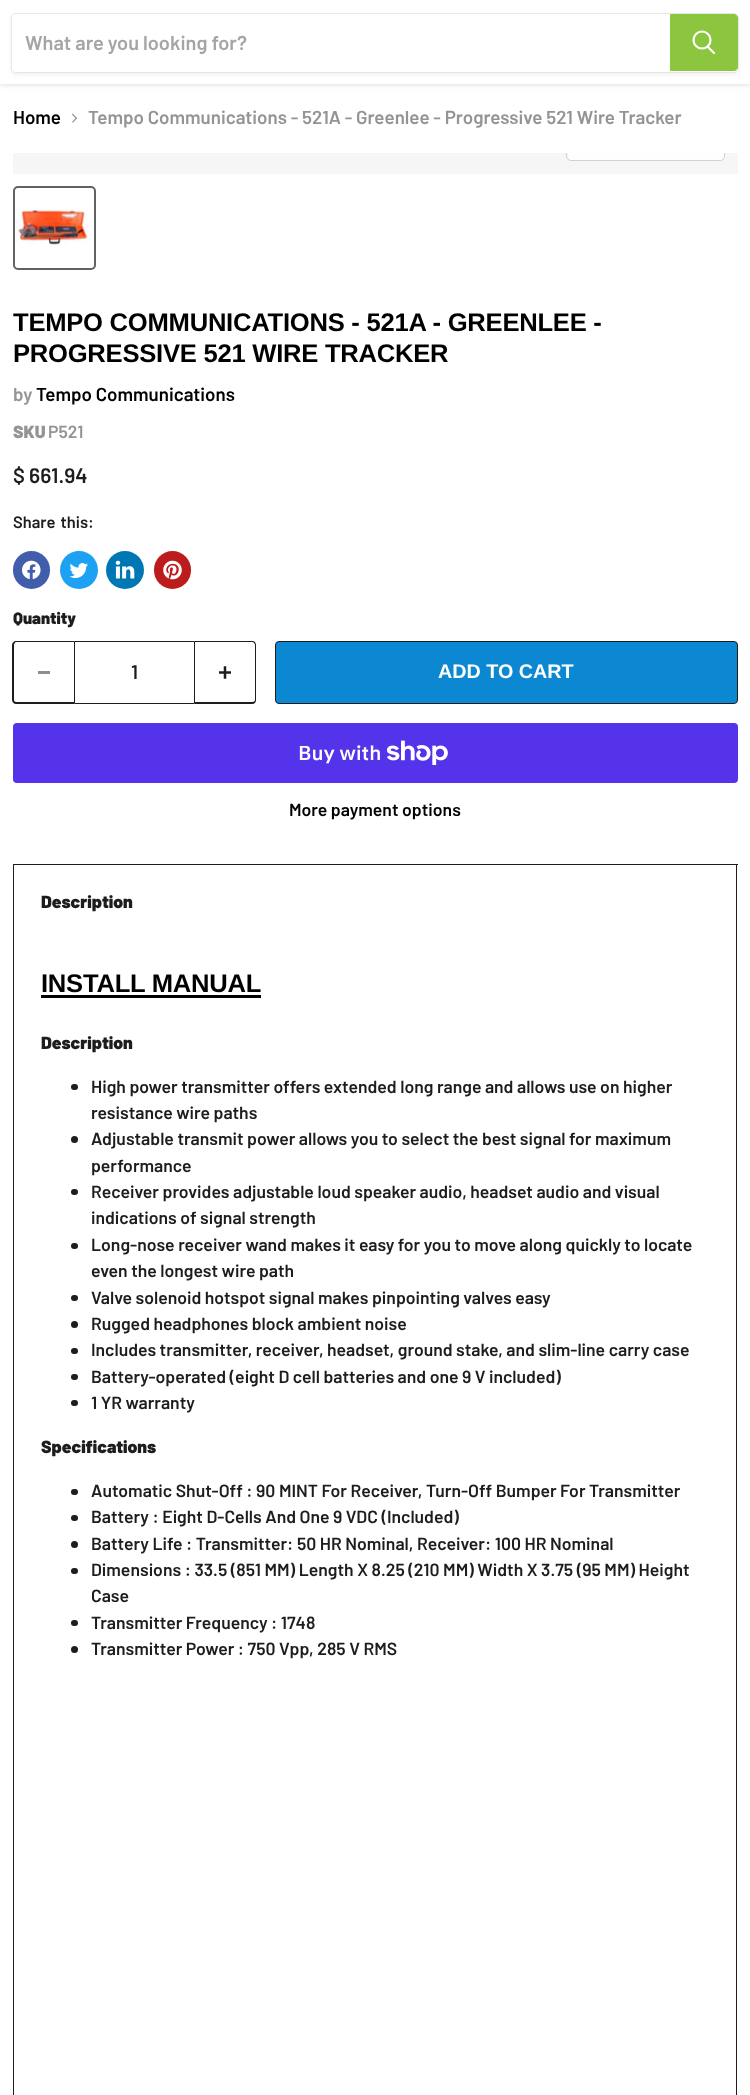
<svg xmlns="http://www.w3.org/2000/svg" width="750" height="2095">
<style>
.a{font:600 20px Barlow;fill:#a5a5a5}
.b{font:600 18.75px Barlow;fill:#000}
.c{font:600 18.75px Barlow;fill:#949494}
.d{font:bold 25.6px Liberation Sans;letter-spacing:-0.25px;fill:#000}
.e{font:900 17.5px Barlow;fill:#949494}
.f{font:600 17.5px Barlow;fill:#949494}
.g{font:600 21px Barlow;fill:#1d1d1d}
.h{font:600 16.5px Barlow;fill:#1d1d1d}
.i{font:900 16.5px Barlow;fill:#1d1d1d}
.j{font:600 19.75px Barlow;fill:#1d1d1d}
.k{font:bold 19.75px Liberation Sans;fill:#fff}
.l{font:600 20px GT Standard;fill:#fff}
.m{font:600 17.6px Barlow;fill:#000}
.n{font:900 17.6px Barlow;fill:#1d1d1d}
.o{font:600 17.6px Barlow;fill:#1d1d1d}
</style>
<defs>
<clipPath id="clip1"><path d="M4 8h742v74h-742zm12 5h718c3 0 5 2 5 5v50c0 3-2 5-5 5h-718c-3 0-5-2-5-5v-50c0-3 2-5 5-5z" clip-rule="evenodd"/></clipPath>
<clipPath id="clip2"><path d="M13 153h725v21H13z"/></clipPath>
</defs>
<rect width="100%" height="100%" fill="#fff"/>
<path fill="#80808040" filter="blur(2.5px)" d="M0 -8h750v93H0z"/>
<path fill="#fff" d="M0 0h750v84H0z"/>
<g clip-path="url(#clip1)">
<rect fill="#8080801c" filter="blur(2px)" x="11" y="15" width="728" height="60" rx="5"/>
</g>
<rect fill="none" stroke="#80808033" x="11.5" y="13.5" width="727" height="59" rx="4.5"/>
<path fill="#8cc63e" stroke="#8cc63e" d="M670.5 14.5h63.5c2 0 3.5 1.5 3.5 3.5v49c0 2-1.5 3.5-3.5 3.5h-63.5z"/>
<path fill="none" stroke="#fff" stroke-width="2.2" stroke-linecap="round" d="M714 53l-6-6"/>
<circle fill="none" stroke="#fff" stroke-width="2.2" cx="702" cy="40" r="8.5"/>
<image href="1.png" x="72" y="113" width="6" height="10"/>
<path fill="#f6f6f6" d="M13 153h725v21H13z"/>
<rect fill="none" stroke="#626262" stroke-width="2" x="14" y="187" width="81" height="82" rx="4"/>
<image href="2.png" x="16" y="206" width="73" height="40"/>
<rect fill="#425dab" x="13" y="551" width="37" height="38" rx="18.5"/>
<image href="3.png" x="22" y="560" width="19" height="20"/>
<circle fill="#1da1f2" cx="79" cy="570" r="19"/>
<image href="4.png" x="69" y="563" width="19" height="16"/>
<circle fill="#0077b5" cx="125" cy="570" r="19"/>
<image href="5.png" x="115" y="560" width="20" height="19"/>
<rect fill="#bd1c1c" x="154" y="551" width="37" height="38" rx="18.5"/>
<image href="6.png" x="163" y="560" width="19" height="20"/>
<path fill="#1d1d1d" fill-rule="evenodd" d="M16 641h58v63h-58c-2 0-4-2-4-4v-55c0-2 2-4 4-4zm0 1h58v60h-58c-1 0-2-1-2-2v-55c0-1 1-3 2-3z"/>
<path fill="#8e8e8e" d="M38 671h12v3H38z"/>
<path fill="none" stroke="#1d1d1d" d="M74.5 641.5h120v62H74.5z"/>
<path fill="#1d1d1d" fill-rule="evenodd" d="M195 641h57c3 0 4 2 4 4v55c0 2-1 4-4 4h-57zm0 1h57c2 0 3 2 3 3v55c0 1-1 2-3 2h-57z"/>
<image href="7.png" x="219" y="666" width="12" height="13"/>
<rect fill="#0c88d2" stroke="#1d1d1d" x="275.5" y="641.5" width="462" height="62" rx="3.5"/>
<rect fill="#5433eb" x="13" y="723" width="725" height="60" rx="4"/>
<image href="8.png" x="386" y="740" width="62" height="25"/>
<path fill="#1d1d1d" d="M13 864h725v1H13z"/>
<path fill="#1d1d1d" d="M736 864h1v1231H736z"/>
<path fill="#1d1d1d" d="M13 864h1v1231H13z"/>
<path fill="#000" d="M41 995h220v3H41z"/>
<rect fill="#1d1d1d" x="71" y="1084" width="7" height="6" rx="3"/>
<circle fill="#1d1d1d" cx="74.5" cy="1139.5" r="3.5"/>
<rect fill="#1d1d1d" x="71" y="1189" width="7" height="6" rx="3"/>
<rect fill="#1d1d1d" x="71" y="1243" width="7" height="6" rx="3"/>
<rect fill="#1d1d1d" x="71" y="1295" width="7" height="6" rx="3"/>
<circle fill="#1d1d1d" cx="74.5" cy="1324.5" r="3.5"/>
<rect fill="#1d1d1d" x="71" y="1348" width="7" height="6" rx="3"/>
<rect fill="#1d1d1d" x="71" y="1374" width="7" height="6" rx="3"/>
<rect fill="#1d1d1d" x="71" y="1400" width="7" height="6" rx="3"/>
<rect fill="#1d1d1d" x="71" y="1489" width="7" height="6" rx="3"/>
<rect fill="#1d1d1d" x="71" y="1515" width="7" height="6" rx="3"/>
<circle fill="#1d1d1d" cx="74.5" cy="1544.5" r="3.5"/>
<rect fill="#1d1d1d" x="71" y="1568" width="7" height="6" rx="3"/>
<rect fill="#1d1d1d" x="71" y="1620" width="7" height="6" rx="3"/>
<circle fill="#1d1d1d" cx="74.5" cy="1649.5" r="3.5"/>
<text class="a" x="25" y="50">What are you looking for?</text>
<text class="b" x="13" y="124">Home</text>
<text class="c" x="88" y="124">Tempo Communications - 521A - Greenlee - Progressive 521 Wire Tracker</text>
<g clip-path="url(#clip2)">
<rect fill="none" stroke="#d1d1d1" x="566.5" y="124.5" width="158" height="36" rx="4.5"/>
</g>
<path fill="#ffffffe6" d="M568 153h156v3c0 2-2 4-4 4h-148c-2 0-4-2-4-4z"/>
<text class="d" x="13" y="331">TEMPO COMMUNICATIONS - 521A - GREENLEE -</text>
<text class="d" x="13" y="362">PROGRESSIVE 521 WIRE TRACKER</text>
<text class="c" x="13" y="401">by</text>
<text class="b" x="36" y="401">Tempo Communications</text>
<text class="e" x="13" y="438">SKU</text>
<text class="f" x="48" y="438">P521</text>
<text class="g" x="13" y="483">$ 661.94</text>
<text class="h" x="13" y="528" word-spacing="2">Share this:</text>
<text class="i" x="13" y="624">Quantity</text>
<text class="j" x="131" y="679">1</text>
<text class="k" x="438" y="678">ADD TO CART</text>
<text class="l" x="298" y="760">Buy with</text>
<text class="m" x="289" y="816">More payment options</text>
<text class="n" x="41" y="908">Description</text>
<text class="d" x="41" y="992">INSTALL MANUAL</text>
<text class="n" x="41" y="1049">Description</text>
<text class="o" x="91" y="1093">High power transmitter offers extended long range and allows use on higher</text>
<text class="o" x="91" y="1119">resistance wire paths</text>
<text class="o" x="91" y="1145">Adjustable transmit power allows you to select the best signal for maximum</text>
<text class="o" x="91" y="1172">performance</text>
<text class="o" x="91" y="1198">Receiver provides adjustable loud speaker audio, headset audio and visual</text>
<text class="o" x="91" y="1224">indications of signal strength</text>
<text class="o" x="91" y="1251">Long-nose receiver wand makes it easy for you to move along quickly to locate</text>
<text class="o" x="91" y="1277">even the longest wire path</text>
<text class="o" x="91" y="1304">Valve solenoid hotspot signal makes pinpointing valves easy</text>
<text class="o" x="91" y="1330">Rugged headphones block ambient noise</text>
<text class="o" x="91" y="1356">Includes transmitter, receiver, headset, ground stake, and slim-line carry case</text>
<text class="o" x="91" y="1383">Battery-operated (eight D cell batteries and one 9 V included)</text>
<text class="o" x="91" y="1409">1 YR warranty</text>
<text class="n" x="41" y="1453">Specifications</text>
<text class="o" x="91" y="1497">Automatic Shut-Off : 90 MINT For Receiver, Turn-Off Bumper For Transmitter</text>
<text class="o" x="91" y="1523">Battery : Eight D-Cells And One 9 VDC (Included)</text>
<text class="o" x="91" y="1550">Battery Life : Transmitter: 50 HR Nominal, Receiver: 100 HR Nominal</text>
<text class="o" x="91" y="1576">Dimensions : 33.5 (851 MM) Length X 8.25 (210 MM) Width X 3.75 (95 MM) Height</text>
<text class="o" x="91" y="1602">Case</text>
<text class="o" x="91" y="1629">Transmitter Frequency : 1748</text>
<text class="o" x="91" y="1655">Transmitter Power : 750 Vpp, 285 V RMS</text>
</svg>
